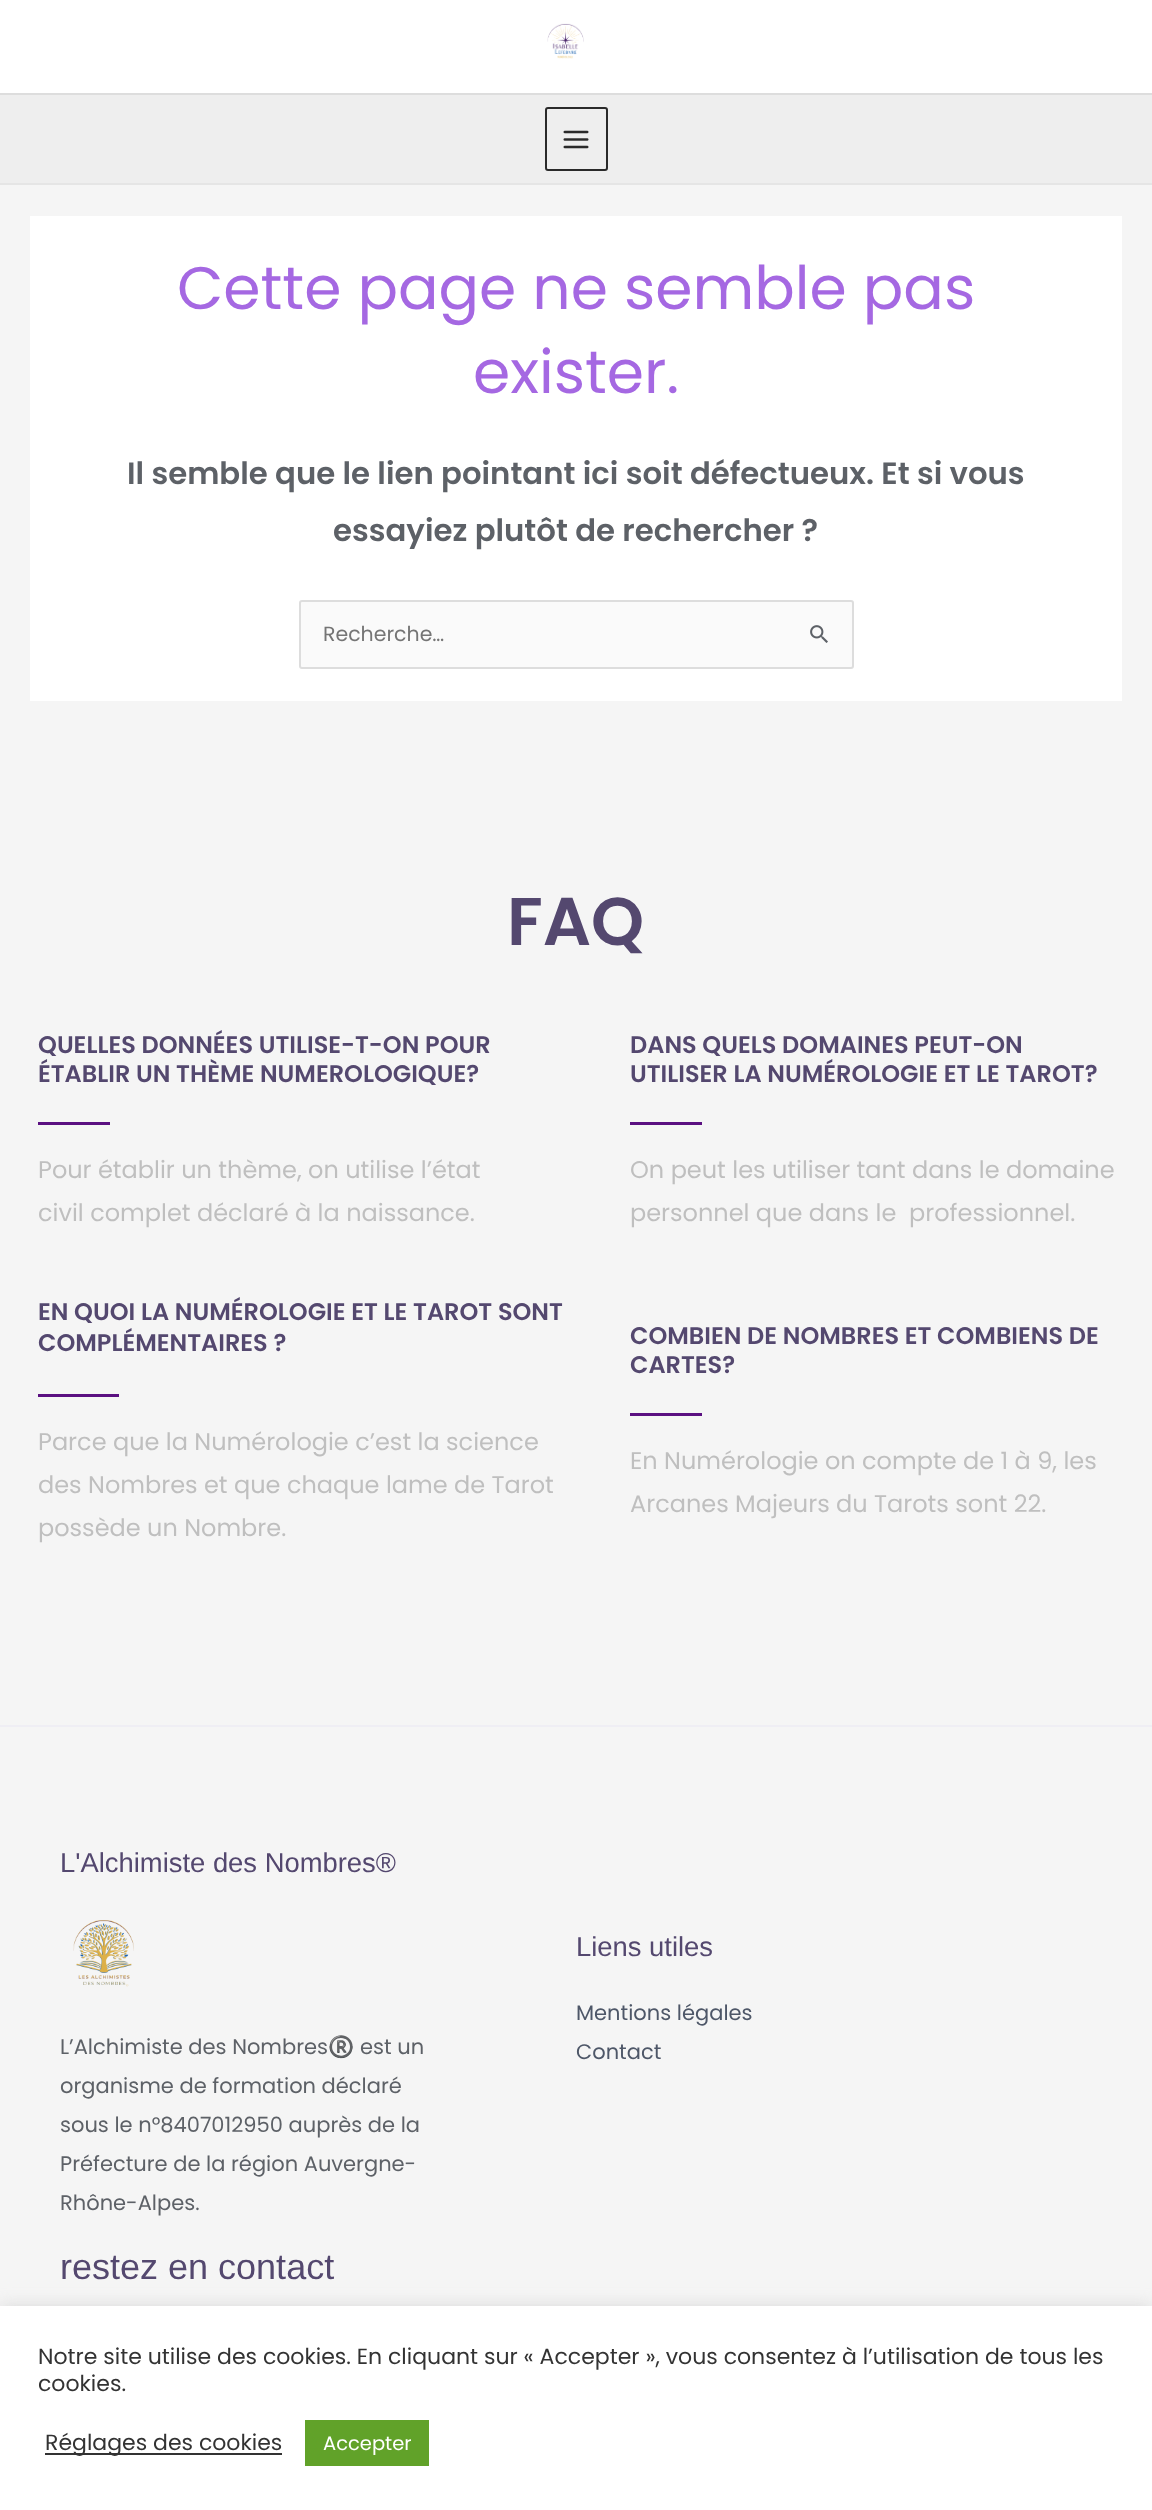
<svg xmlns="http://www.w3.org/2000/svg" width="1152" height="2510">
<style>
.a{font:60px Poppins;fill:#a568e2}
.b{font:600 30.75px Poppins;fill:#5d6167}
.c{font:20.5px Poppins;fill:#757575}
.d{font:600 67.5px Poppins;fill:#54486f}
.e{font:600 24px Poppins;fill:#54486f}
.f{font:24px Poppins;fill:#bfbfbf}
.g{font:27.4px Liberation Sans;fill:#54486f}
.h{font:21px Poppins;fill:#5d6167}
.i{font:21px Noto Color Emoji;fill:#5d6167}
.j{font:21px Poppins;fill:#4e5768}
.k{font:36px Liberation Sans;fill:#54486f}
.l{font:22px Poppins;fill:#333}
.m{font:19.5px Poppins;fill:#fff}
</style>
<rect width="100%" height="100%" fill="#f5f5f5"/>
<path fill="#fff" d="M0 0h1152v93H0z"/>
<path fill="#ddd" d="M0 93h1152v2H0z"/>
<image href="1.png" x="547" y="23" width="37" height="36"/>
<path fill="#eee" d="M0 95h1152v88H0z"/>
<path fill="#e5e5e5" d="M0 183h1152v2H0z"/>
<rect fill="none" stroke="#2a2a2a" stroke-width="2" x="546" y="108" width="61" height="62" rx="2"/>
<image href="2.png" x="563" y="130" width="26" height="19"/>
<path fill="#fff" d="M30 216h1092v485H30z"/>
<rect fill="#fafafa" stroke="#ddd" stroke-width="2" x="300" y="601" width="553" height="67" rx="2"/>
<image href="3.png" x="810" y="625" width="18" height="18"/>
<path fill="#5b1081" d="M38 1122h72v3H38z"/>
<path fill="#5b1081" d="M630 1122h72v3H630z"/>
<path fill="#5b1081" d="M38 1394h81v3H38z"/>
<path fill="#5b1081" d="M630 1413h72v3H630z"/>
<path fill="#efeef4" d="M0 1725h1152v2H0z"/>
<image href="4.png" x="73" y="1920" width="61" height="67"/>
<path fill="#acabab4d" filter="blur(7.5px)" d="M0 2304h1152v206H0z"/>
<path fill="#fff" d="M0 2306h1152v204H0z"/>
<path fill="#333" d="M45 2453h237v2H45z"/>
<path fill="#61a229" d="M305 2420h124v46H305z"/>
<text class="a" x="177" y="309">Cette page ne semble pas</text>
<text class="a" x="473" y="393">exister.</text>
<text class="b" x="127" y="484">Il semble que le lien pointant ici soit défectueux. Et si vous</text>
<text class="b" x="333" y="541">essayiez plutôt de rechercher ?</text>
<text class="c" x="323" y="641">Recherche…</text>
<text class="d" x="507" y="945">FAQ</text>
<text class="e" x="38" y="1053">QUELLES DONNÉES UTILISE-T-ON POUR</text>
<text class="e" x="38" y="1082">ÉTABLIR UN THÈME NUMEROLOGIQUE?</text>
<text class="f" x="38" y="1178">Pour établir un thème, on utilise l’état</text>
<text class="f" x="38" y="1221">civil complet déclaré à la naissance.</text>
<text class="e" x="630" y="1053">DANS QUELS DOMAINES PEUT-ON</text>
<text class="e" x="630" y="1082">UTILISER LA NUMÉROLOGIE ET LE TAROT?</text>
<text class="f" x="630" y="1178">On peut les utiliser tant dans le domaine</text>
<text class="f" xml:space="preserve" x="630" y="1221">personnel que dans le  professionnel.</text>
<text class="e" x="38" y="1320">EN QUOI LA NUMÉROLOGIE ET LE TAROT SONT</text>
<text class="e" x="38" y="1351">COMPLÉMENTAIRES ?</text>
<text class="f" x="38" y="1450">Parce que la Numérologie c’est la science</text>
<text class="f" x="38" y="1493">des Nombres et que chaque lame de Tarot</text>
<text class="f" x="38" y="1536">possède un Nombre.</text>
<text class="e" x="630" y="1344">COMBIEN DE NOMBRES ET COMBIENS DE</text>
<text class="e" x="630" y="1373">CARTES?</text>
<text class="f" x="630" y="1469">En Numérologie on compte de 1 à 9, les</text>
<text class="f" x="630" y="1512">Arcanes Majeurs du Tarots sont 22.</text>
<text class="g" x="60" y="1872">L'Alchimiste des Nombres®</text>
<text class="h" x="60" y="2054">L’Alchimiste des Nombres</text>
<text class="i" x="328" y="2054">®️</text>
<text class="h" x="360" y="2054">est un</text>
<text class="h" x="60" y="2093">organisme de formation déclaré</text>
<text class="h" x="60" y="2132">sous le n°8407012950 auprès de la</text>
<text class="h" x="60" y="2171">Préfecture de la région Auvergne-</text>
<text class="h" x="60" y="2210">Rhône-Alpes.</text>
<text class="g" x="576" y="1956">Liens utiles</text>
<text class="j" x="576" y="2020">Mentions légales</text>
<text class="j" x="576" y="2059">Contact</text>
<text class="k" x="60" y="2279">restez en contact</text>
<text class="l" x="38" y="2364">Notre site utilise des cookies. En cliquant sur « Accepter », vous consentez à l’utilisation de tous les</text>
<text class="l" x="38" y="2391">cookies.</text>
<text class="l" x="45" y="2450">Réglages des cookies</text>
<text class="m" x="323" y="2450">Accepter</text>
</svg>
